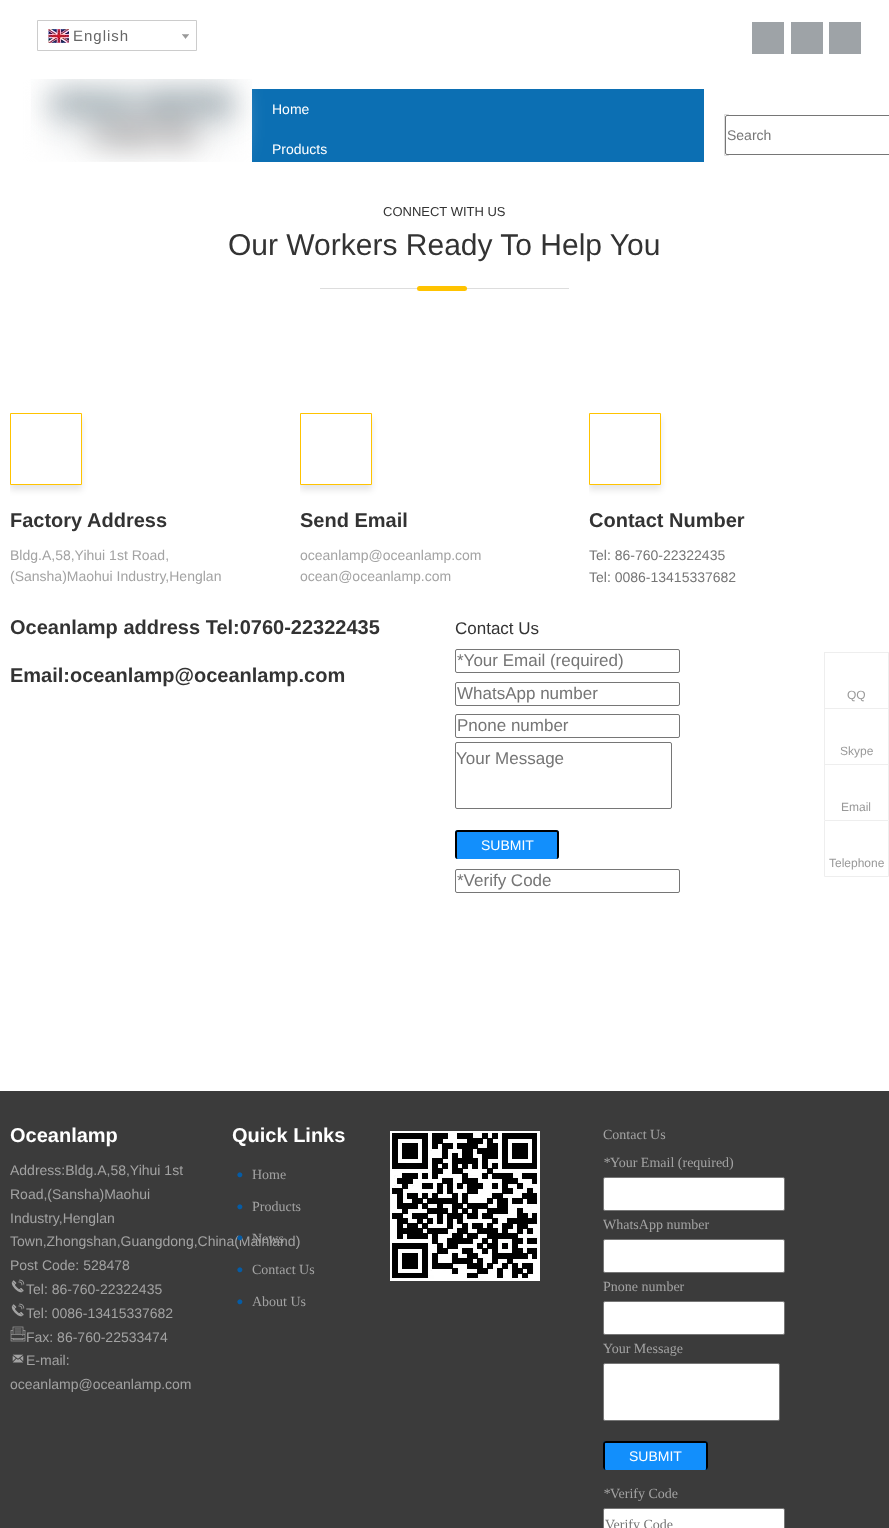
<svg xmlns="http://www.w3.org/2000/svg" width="889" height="1528">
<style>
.a{font:15px Liberation Sans;letter-spacing:1px;fill:#666}
.b{font:14px Liberation Sans;fill:#fff}
.c{font:14px Liberation Sans;fill:#757575}
.d{font:13px Liberation Sans;fill:#333}
.e{font:30px Liberation Sans;fill:#333}
.f{font:bold 20px Liberation Sans;fill:#333}
.g{font:14px Liberation Sans;fill:#a3a3a3}
.h{font:17px Liberation Sans;fill:#333}
.i{font:17px Liberation Sans;fill:#757575}
.j{font:12px Liberation Sans;fill:#999}
.k{font:bold 20px Liberation Sans;fill:#fff}
.l{font:14px Liberation Serif;fill:#a3a3a3}
.m{font:italic 14px Liberation Serif;fill:#a3a3a3}
.n{font:14px Liberation Serif;fill:#757575}
</style>
<defs>
<clipPath id="clip1"><path d="M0 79h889v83H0z"/></clipPath>
<clipPath id="clip2"><path d="M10 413h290v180H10z"/></clipPath>
<clipPath id="clip3"><path d="M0 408h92v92h-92zm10 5h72v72h-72z" clip-rule="evenodd"/></clipPath>
<clipPath id="clip4"><path d="M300 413h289v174H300z"/></clipPath>
<clipPath id="clip5"><path d="M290 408h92v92h-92zm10 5h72v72h-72z" clip-rule="evenodd"/></clipPath>
<clipPath id="clip6"><path d="M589 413h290v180H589z"/></clipPath>
<clipPath id="clip7"><path d="M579 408h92v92h-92zm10 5h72v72h-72z" clip-rule="evenodd"/></clipPath>
</defs>
<rect width="100%" height="100%" fill="#fff"/>
<path fill="none" stroke="#ccc" d="M37.5 20.5h159v30H37.5z"/>
<image href="1.png" x="48" y="29" width="21" height="14"/>
<image href="2.png" x="182" y="34" width="7" height="5"/>
<path fill="#9ea3a7" d="M752 22h32v32H752z"/>
<path fill="#9ea3a7" d="M791 22h32v32H791z"/>
<path fill="#9ea3a7" d="M829 22h32v32H829z"/>
<path fill="#0c6fb3" d="M252 89h452v73H252z"/>
<g clip-path="url(#clip1)">
<path fill="#f0f1f2" filter="blur(15px)" d="M50 89h182v58H50z"/>
</g>
<image href="3.png" x="31" y="79" width="221" height="83"/>
<path fill="none" stroke="#ddd" d="M724.5 114.5h4v41H724.5z"/>
<path fill="#fff" d="M727 115h162v40h-162c-1 0-2-1-2-2v-36c0-1 1-2 2-2z"/>
<rect fill="none" stroke="#767676" x="725.5" y="115.5" width="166" height="39" rx="1.5"/>
<path fill="#ddd" d="M320 288h249v1H320z"/>
<rect fill="#ffc300" x="417" y="286" width="50" height="5" rx="2.5"/>
<g clip-path="url(#clip2)">
<g clip-path="url(#clip3)">
<path fill="#0000001a" filter="blur(3px)" d="M10 418h72v72H10z"/>
</g>
</g>
<path fill="none" stroke="#ffc300" d="M10.5 413.5h71v71H10.5z"/>
<g clip-path="url(#clip4)">
<g clip-path="url(#clip5)">
<path fill="#0000001a" filter="blur(3px)" d="M300 418h72v72H300z"/>
</g>
</g>
<path fill="none" stroke="#ffc300" d="M300.5 413.5h71v71H300.5z"/>
<g clip-path="url(#clip6)">
<g clip-path="url(#clip7)">
<path fill="#0000001a" filter="blur(3px)" d="M589 418h72v72H589z"/>
</g>
</g>
<path fill="none" stroke="#ffc300" d="M589.5 413.5h71v71H589.5z"/>
<rect fill="none" stroke="#767676" x="455.5" y="649.5" width="224" height="23" rx="1.5"/>
<rect fill="none" stroke="#767676" x="455.5" y="682.5" width="224" height="23" rx="1.5"/>
<rect fill="none" stroke="#767676" x="455.5" y="714.5" width="224" height="23" rx="1.5"/>
<rect fill="none" stroke="#767676" x="455.5" y="742.5" width="216" height="66" rx="1.5"/>
<rect fill="#128ffc" x="455" y="830" width="104" height="29" rx="3"/>
<path fill="#000" fill-rule="evenodd" d="M458 830h98c2 0 3 1 3 3v23c0 2-1 3-3 3h-98c-2 0-3-1-3-3v-23c0-2 1-3 3-3zm0 2h98c1 0 1 0 1 1v23c0 2 0 3-1 3h-98c-1 0-1-1-1-3v-23c0-1 0-1 1-1z"/>
<rect fill="none" stroke="#767676" x="455.5" y="869.5" width="224" height="23" rx="1.5"/>
<path fill="#eee" d="M824 652h65v1H824z"/>
<path fill="#eee" d="M888 652h1v56H888z"/>
<path fill="#eee" d="M824 652h1v56H824z"/>
<path fill="#eee" d="M824 708h65v1H824z"/>
<path fill="#eee" d="M888 708h1v56H888z"/>
<path fill="#eee" d="M824 708h1v56H824z"/>
<path fill="#eee" d="M824 764h65v1H824z"/>
<path fill="#eee" d="M888 764h1v56H888z"/>
<path fill="#eee" d="M824 764h1v56H824z"/>
<path fill="none" stroke="#eee" d="M824.5 820.5h64v56H824.5z"/>
<path fill="#3b3b3b" d="M0 1091h889v437H0z"/>
<image href="4.png" x="11" y="1279" width="14" height="14"/>
<image href="4.png" x="11" y="1303" width="14" height="14"/>
<image href="5.png" x="10" y="1326" width="16" height="16"/>
<image href="6.png" x="12" y="1354" width="12" height="9"/>
<image href="7.png" x="237" y="1172" width="6" height="6"/>
<image href="7.png" x="237" y="1204" width="6" height="6"/>
<image href="7.png" x="237" y="1267" width="6" height="6"/>
<image href="7.png" x="237" y="1299" width="6" height="6"/>
<image href="9.png" x="390" y="1131" width="150" height="150"/>
<rect fill="#fff" stroke="#767676" x="603.5" y="1177.5" width="181" height="33" rx="1.5"/>
<rect fill="#fff" stroke="#767676" x="603.5" y="1239.5" width="181" height="33" rx="1.5"/>
<rect fill="#fff" stroke="#767676" x="603.5" y="1301.5" width="181" height="33" rx="1.5"/>
<rect fill="#fff" stroke="#767676" x="603.5" y="1363.5" width="176" height="57" rx="1.5"/>
<rect fill="#128ffc" x="603" y="1441" width="105" height="29" rx="3"/>
<path fill="#000" fill-rule="evenodd" d="M606 1441h99c2 0 3 1 3 3v23c0 2-1 3-3 3h-99c-2 0-3-1-3-3v-23c0-2 1-3 3-3zm0 2h99c1 0 1 0 1 1v23c0 2 0 3-1 3h-99c-1 0-1-1-1-3v-23c0-1 0-1 1-1z"/>
<rect fill="#fff" stroke="#767676" x="603.5" y="1508.5" width="181" height="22" rx="1.5"/>
<text class="a" x="73" y="41">English</text>
<text class="b" x="272" y="114">Home</text>
<text class="b" x="272" y="154">Products</text>
<text class="c" x="727" y="140">Search</text>
<text class="d" x="383" y="216">CONNECT WITH US</text>
<text class="e" x="228" y="255">Our Workers Ready To Help You</text>
<text class="f" x="10" y="527">Factory Address</text>
<text class="g" x="10" y="560">Bldg.A,58,Yihui 1st Road,</text>
<text class="g" x="10" y="581">(Sansha)Maohui Industry,Henglan</text>
<text class="f" x="300" y="527">Send Email</text>
<text class="g" x="300" y="560">oceanlamp@oceanlamp.com</text>
<text class="g" x="300" y="581">ocean@oceanlamp.com</text>
<text class="f" x="589" y="527">Contact Number</text>
<text class="c" x="589" y="560">Tel: 86-760-22322435</text>
<text class="c" x="589" y="582">Tel: 0086-13415337682</text>
<text class="f" x="10" y="634">Oceanlamp address Tel:0760-22322435</text>
<text class="f" x="10" y="682">Email:oceanlamp@oceanlamp.com</text>
<text class="h" x="455" y="634">Contact Us</text>
<text class="i" x="457" y="666">*Your Email (required)</text>
<text class="i" x="457" y="699">WhatsApp number</text>
<text class="i" x="457" y="731">Pnone number</text>
<text class="i" x="456" y="764">Your Message</text>
<text class="b" x="481" y="850">SUBMIT</text>
<text class="i" x="457" y="886">*Verify Code</text>
<text class="j" x="847" y="699">QQ</text>
<text class="j" x="840" y="755">Skype</text>
<text class="j" x="841" y="811">Email</text>
<text class="j" x="829" y="867">Telephone</text>
<text class="k" x="10" y="1142">Oceanlamp</text>
<text class="g" x="10" y="1175">Address:Bldg.A,58,Yihui 1st</text>
<text class="g" x="10" y="1199">Road,(Sansha)Maohui</text>
<text class="g" x="10" y="1223">Industry,Henglan</text>
<text class="g" x="10" y="1246">Town,Zhongshan,Guangdong,China(Mainland)</text>
<text class="g" x="10" y="1270">Post Code: 528478</text>
<text class="g" x="26" y="1294">Tel: 86-760-22322435</text>
<text class="g" x="26" y="1318">Tel: 0086-13415337682</text>
<text class="g" x="26" y="1342">Fax: 86-760-22533474</text>
<text class="g" x="26" y="1365">E-mail:</text>
<text class="g" x="10" y="1389">oceanlamp@oceanlamp.com</text>
<text class="k" x="232" y="1142">Quick Links</text>
<text class="l" x="252" y="1179">Home</text>
<text class="l" x="252" y="1211">Products</text>
<image href="8.png" x="237" y="1235" width="6" height="6"/>
<text class="l" x="252" y="1243">News</text>
<text class="l" x="252" y="1274">Contact Us</text>
<text class="l" x="252" y="1306">About Us</text>
<text class="l" x="603" y="1139">Contact Us</text>
<text class="m" x="603" y="1167">*</text>
<text class="l" x="610" y="1167">Your Email (required)</text>
<text class="l" x="603" y="1229">WhatsApp number</text>
<text class="l" x="603" y="1291">Pnone number</text>
<text class="l" x="603" y="1353">Your Message</text>
<text class="b" x="629" y="1461">SUBMIT</text>
<text class="m" x="603" y="1498">*</text>
<text class="l" x="610" y="1498">Verify Code</text>
<text class="n" x="605" y="1529">Verify Code</text>
</svg>
